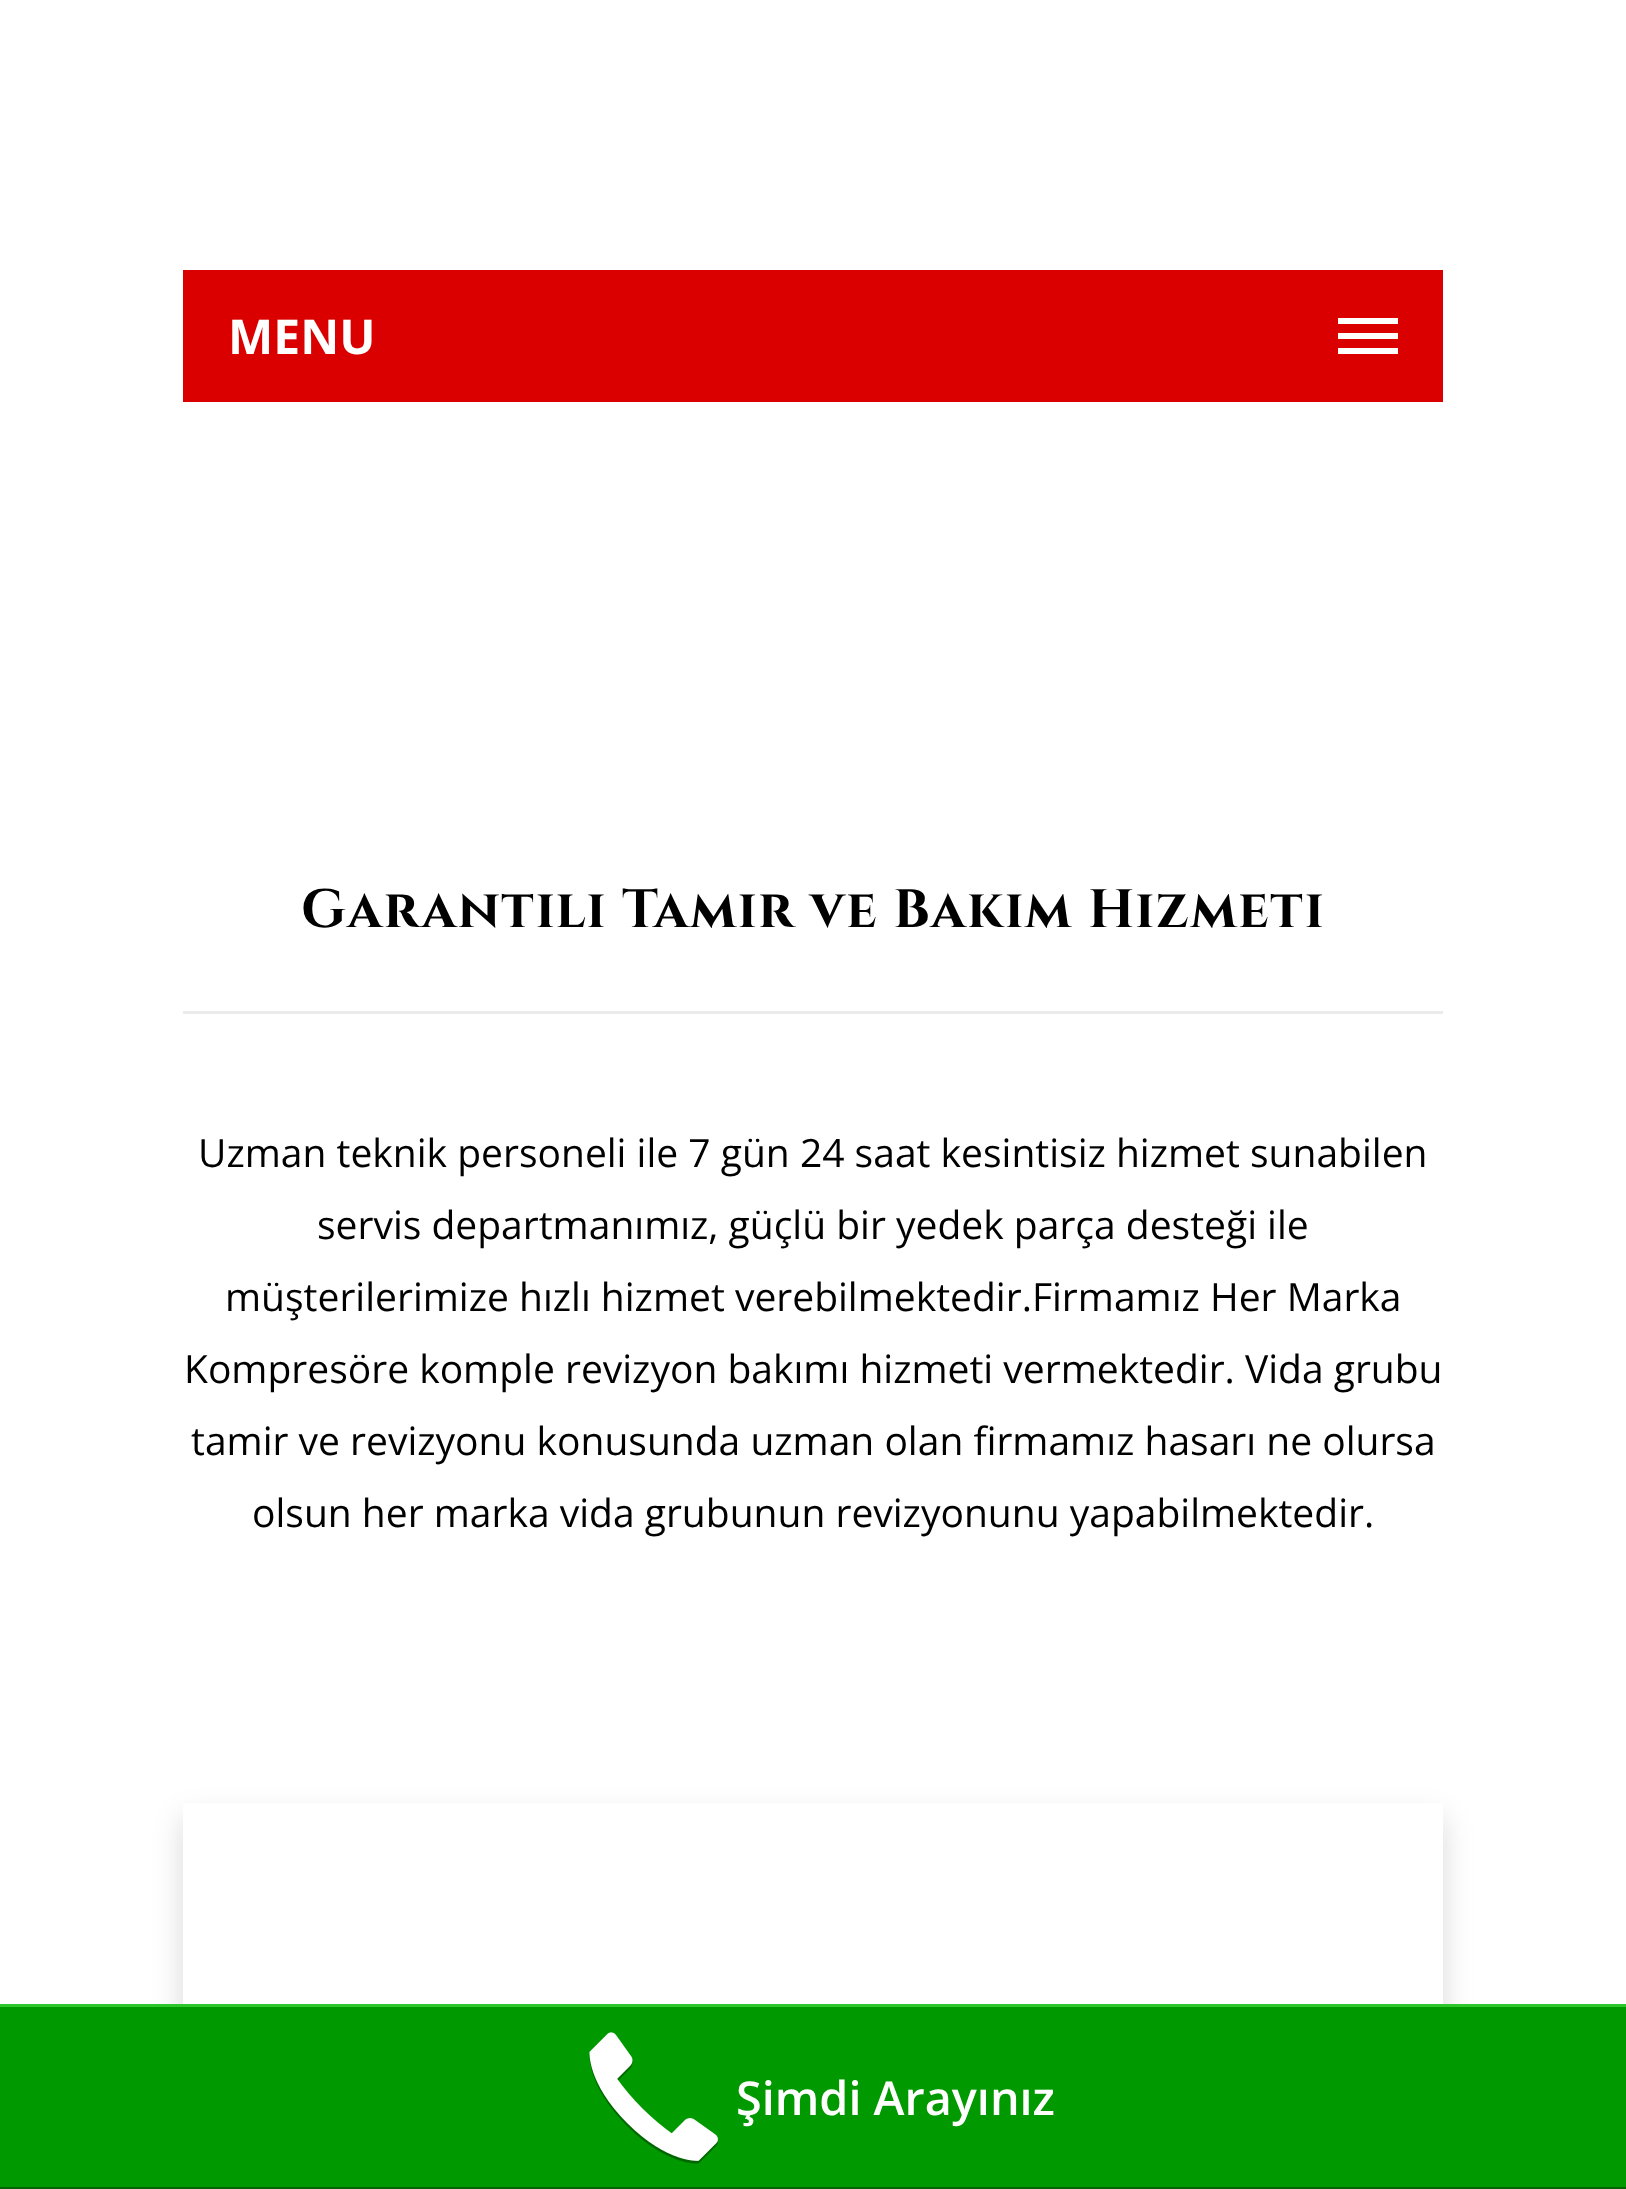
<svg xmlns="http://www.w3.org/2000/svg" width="1626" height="2189">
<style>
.a{font:bold 48px Open Sans;fill:#fff}
.b{font:bold 54px Cinzel;letter-spacing:1.5px;fill:#000}
.c{font:39px Open Sans;fill:#000}
.d{font:600 46.75px Open Sans;fill:#fff}
</style>
<defs>
<clipPath id="clip1"><path d="M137 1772h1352v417h-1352zm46 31h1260v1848h-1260z" clip-rule="evenodd"/></clipPath>
</defs>
<rect width="100%" height="100%" fill="#fff"/>
<path fill="#da0000" d="M183 270h1260v132H183z"/>
<path fill="#fff" d="M1338 333h60v6H1338z"/>
<path fill="#fff" d="M1338 318h60v6H1338z"/>
<path fill="#fff" d="M1338 348h60v6H1338z"/>
<path fill="#ebebeb" d="M183 1011h1260v3H183z"/>
<g clip-path="url(#clip1)">
<path fill="#00000026" filter="blur(15px)" d="M183 1818h1260v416H183z"/>
</g>
<path fill="#090" d="M0 2007h1626v180H0z"/>
<path fill="#2dc62d" d="M0 2004h1626v3H0z"/>
<path fill="#006700" d="M0 2187h1626v2H0z"/>
<image href="1.png" x="589" y="2032" width="129" height="132"/>
<text class="a" x="228" y="354">MENU</text>
<text class="b" x="301" y="927">Garantili Tamir ve Bakım Hizmeti</text>
<text class="c" x="198" y="1167">Uzman teknik personeli ile 7 gün 24 saat kesintisiz hizmet sunabilen</text>
<text class="c" x="317" y="1239">servis departmanımız, güçlü bir yedek parça desteği ile</text>
<text class="c" x="225" y="1311">müşterilerimize hızlı hizmet verebilmektedir.Firmamız Her Marka</text>
<text class="c" x="184" y="1383">Kompresöre komple revizyon bakımı hizmeti vermektedir. Vida grubu</text>
<text class="c" x="191" y="1455">tamir ve revizyonu konusunda uzman olan firmamız hasarı ne olursa</text>
<text class="c" x="252" y="1527">olsun her marka vida grubunun revizyonunu yapabilmektedir.</text>
<text class="d" x="736" y="2115">Şimdi Arayınız</text>
</svg>
